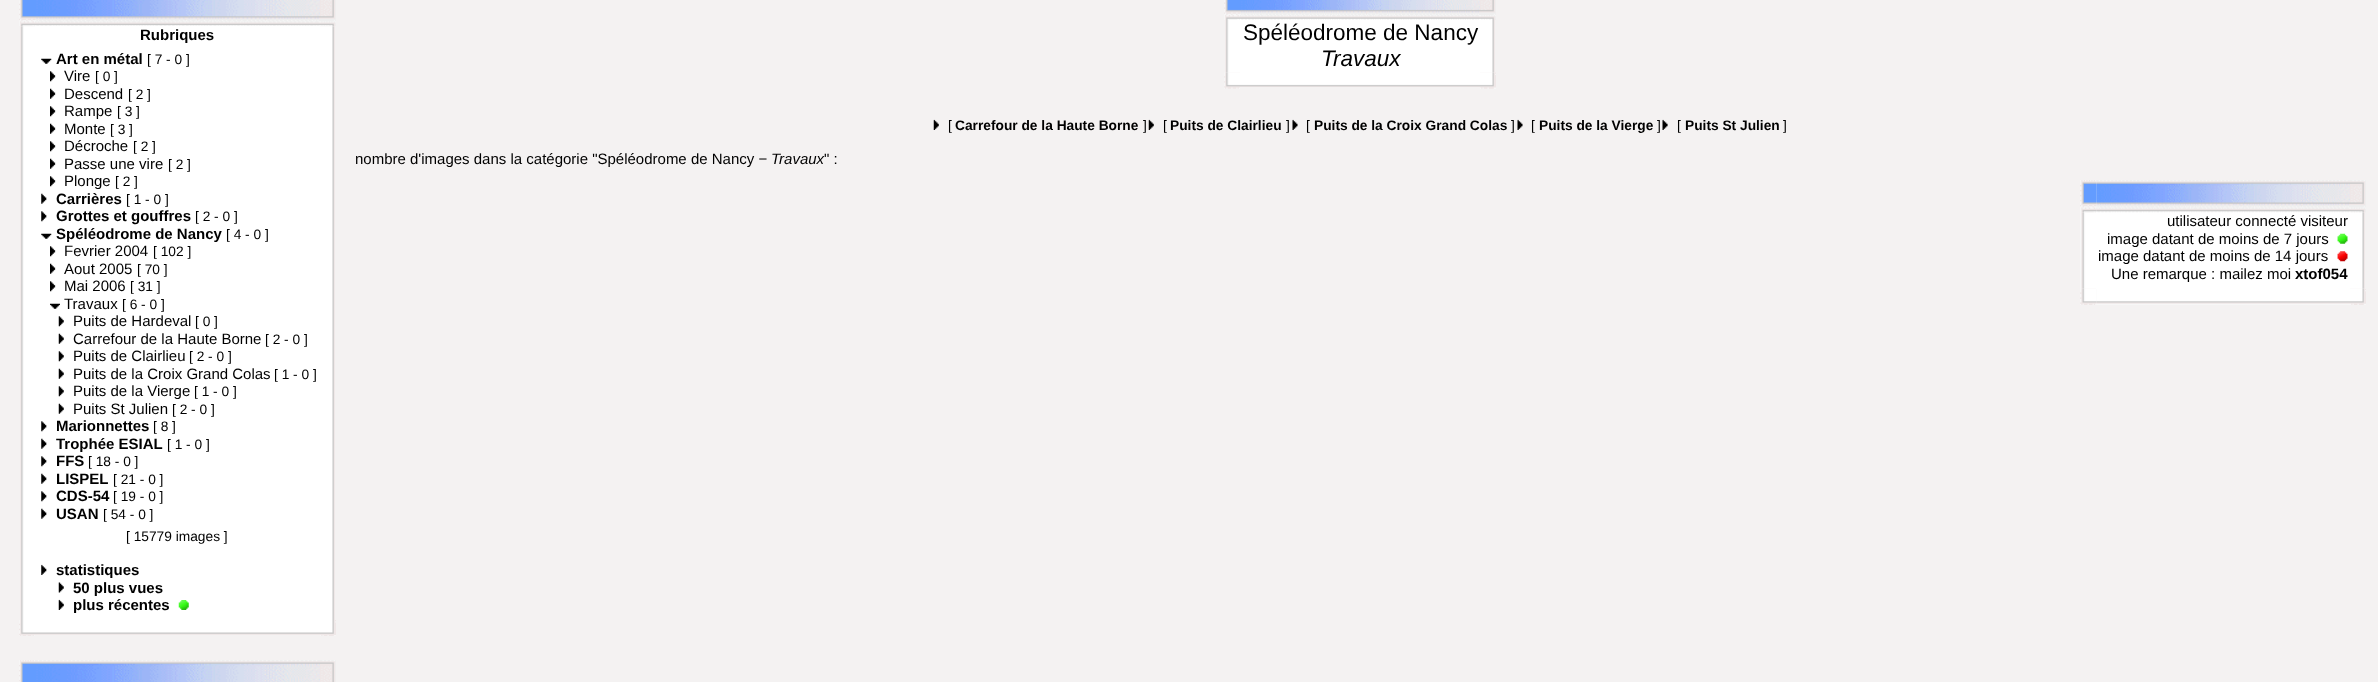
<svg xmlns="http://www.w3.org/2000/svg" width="2378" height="682">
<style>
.a{font:bold 15px Liberation Sans;fill:#000}
.b{font:13.75px Liberation Sans;fill:#000}
.c{font:15px Liberation Sans;fill:#000}
.d{font:22.5px Liberation Sans;fill:#000}
.e{font:italic 22.5px Liberation Sans;fill:#000}
.f{font:bold 13.75px Liberation Sans;fill:#000}
.g{font:italic 15px Liberation Sans;fill:#000}
</style>
<rect width="100%" height="100%" fill="#f4f2f2"/>
<image href="1.png" x="19" y="0" width="16" height="26"/>
<image href="2.png" x="35" y="0" width="285" height="26"/>
<image href="3.png" x="320" y="0" width="16" height="26"/>
<image href="4.png" x="20" y="26" width="15" height="594"/>
<path fill="#fff" d="M35 26h285v594H35z"/>
<image href="5.png" x="41" y="58" width="11" height="6"/>
<image href="6.png" x="50" y="71" width="6" height="11"/>
<image href="7.png" x="50" y="88" width="6" height="11"/>
<image href="6.png" x="50" y="106" width="6" height="11"/>
<image href="7.png" x="50" y="123" width="6" height="11"/>
<image href="6.png" x="50" y="141" width="6" height="11"/>
<image href="7.png" x="50" y="158" width="6" height="11"/>
<image href="6.png" x="50" y="176" width="6" height="11"/>
<image href="8.png" x="41" y="193" width="6" height="11"/>
<image href="9.png" x="41" y="211" width="6" height="11"/>
<image href="5.png" x="41" y="233" width="11" height="6"/>
<image href="6.png" x="50" y="246" width="6" height="11"/>
<image href="10.png" x="50" y="263" width="6" height="11"/>
<image href="6.png" x="50" y="281" width="6" height="11"/>
<image href="11.png" x="50" y="303" width="10" height="6"/>
<image href="12.png" x="58" y="316" width="6" height="11"/>
<image href="13.png" x="58" y="333" width="6" height="11"/>
<image href="12.png" x="58" y="351" width="6" height="11"/>
<image href="13.png" x="58" y="368" width="6" height="11"/>
<image href="12.png" x="58" y="386" width="6" height="11"/>
<image href="13.png" x="58" y="403" width="6" height="11"/>
<image href="9.png" x="41" y="421" width="6" height="11"/>
<image href="8.png" x="41" y="438" width="6" height="11"/>
<image href="9.png" x="41" y="456" width="6" height="11"/>
<image href="8.png" x="41" y="473" width="6" height="11"/>
<image href="9.png" x="41" y="491" width="6" height="11"/>
<image href="8.png" x="41" y="508" width="6" height="11"/>
<image href="14.png" x="41" y="564" width="6" height="11"/>
<image href="15.png" x="58" y="582" width="6" height="11"/>
<image href="16.png" x="58" y="599" width="6" height="11"/>
<image href="17.png" x="178" y="600" width="11" height="10"/>
<image href="18.png" x="320" y="26" width="15" height="594"/>
<image href="19.png" x="19" y="620" width="16" height="16"/>
<image href="20.png" x="35" y="620" width="285" height="15"/>
<image href="21.png" x="320" y="620" width="16" height="16"/>
<image href="22.png" x="19" y="660" width="16" height="22"/>
<image href="23.png" x="35" y="660" width="285" height="22"/>
<image href="24.png" x="320" y="660" width="16" height="22"/>
<image href="25.png" x="1224" y="0" width="16" height="20"/>
<image href="26.png" x="1240" y="0" width="240" height="20"/>
<image href="27.png" x="1480" y="0" width="16" height="20"/>
<image href="28.png" x="1225" y="20" width="15" height="53"/>
<path fill="#fff" d="M1240 20h240v53H1240z"/>
<image href="29.png" x="1480" y="20" width="15" height="53"/>
<image href="30.png" x="1224" y="72" width="16" height="17"/>
<image href="31.png" x="1240" y="73" width="240" height="14"/>
<image href="32.png" x="1480" y="72" width="16" height="17"/>
<image href="33.png" x="933" y="119" width="6" height="11"/>
<image href="33.png" x="1148" y="119" width="6" height="11"/>
<image href="34.png" x="1292" y="119" width="6" height="11"/>
<image href="34.png" x="1517" y="119" width="6" height="11"/>
<image href="35.png" x="1662" y="119" width="6" height="11"/>
<image href="39.png" x="2080" y="212" width="16" height="77"/>
<path fill="#fff" d="M2096 212h254v77H2096z"/>
<image href="36.png" x="2080" y="180" width="17" height="33"/>
<image href="37.png" x="2096" y="180" width="254" height="33"/>
<image href="42.png" x="2350" y="212" width="15" height="77"/>
<image href="38.png" x="2350" y="180" width="16" height="33"/>
<image href="40.png" x="2337" y="233" width="11" height="11"/>
<image href="41.png" x="2337" y="251" width="11" height="11"/>
<image href="43.png" x="2080" y="289" width="17" height="16"/>
<image href="44.png" x="2096" y="289" width="254" height="16"/>
<image href="45.png" x="2350" y="289" width="16" height="16"/>
<text class="a" x="140" y="40">Rubriques</text>
<text class="a" x="56" y="64">Art en métal</text>
<text class="b" x="147" y="64">[ 7 - 0 ]</text>
<text class="c" x="64" y="81">Vire</text>
<text class="b" x="95" y="81">[ 0 ]</text>
<text class="c" x="64" y="99">Descend</text>
<text class="b" x="128" y="99">[ 2 ]</text>
<text class="c" x="64" y="116">Rampe</text>
<text class="b" x="117" y="116">[ 3 ]</text>
<text class="c" x="64" y="134">Monte</text>
<text class="b" x="110" y="134">[ 3 ]</text>
<text class="c" x="64" y="151">Décroche</text>
<text class="b" x="133" y="151">[ 2 ]</text>
<text class="c" x="64" y="169">Passe une vire</text>
<text class="b" x="168" y="169">[ 2 ]</text>
<text class="c" x="64" y="186">Plonge</text>
<text class="b" x="115" y="186">[ 2 ]</text>
<text class="a" x="56" y="204">Carrières</text>
<text class="b" x="126" y="204">[ 1 - 0 ]</text>
<text class="a" x="56" y="221">Grottes et gouffres</text>
<text class="b" x="195" y="221">[ 2 - 0 ]</text>
<text class="a" x="56" y="239">Spéléodrome de Nancy</text>
<text class="b" x="226" y="239">[ 4 - 0 ]</text>
<text class="c" x="64" y="256">Fevrier 2004</text>
<text class="b" x="153" y="256">[ 102 ]</text>
<text class="c" x="64" y="274">Aout 2005</text>
<text class="b" x="137" y="274">[ 70 ]</text>
<text class="c" x="64" y="291">Mai 2006</text>
<text class="b" x="130" y="291">[ 31 ]</text>
<text class="c" x="64" y="309">Travaux</text>
<text class="b" x="122" y="309">[ 6 - 0 ]</text>
<text class="c" x="73" y="326">Puits de Hardeval</text>
<text class="b" x="195" y="326">[ 0 ]</text>
<text class="c" x="73" y="344">Carrefour de la Haute Borne</text>
<text class="b" x="265" y="344">[ 2 - 0 ]</text>
<text class="c" x="73" y="361">Puits de Clairlieu</text>
<text class="b" x="189" y="361">[ 2 - 0 ]</text>
<text class="c" x="73" y="379">Puits de la Croix Grand Colas</text>
<text class="b" x="274" y="379">[ 1 - 0 ]</text>
<text class="c" x="73" y="396">Puits de la Vierge</text>
<text class="b" x="194" y="396">[ 1 - 0 ]</text>
<text class="c" x="73" y="414">Puits St Julien</text>
<text class="b" x="172" y="414">[ 2 - 0 ]</text>
<text class="a" x="56" y="431">Marionnettes</text>
<text class="b" x="153" y="431">[ 8 ]</text>
<text class="a" x="56" y="449">Trophée ESIAL</text>
<text class="b" x="167" y="449">[ 1 - 0 ]</text>
<text class="a" x="56" y="466">FFS</text>
<text class="b" x="88" y="466">[ 18 - 0 ]</text>
<text class="a" x="56" y="484">LISPEL</text>
<text class="b" x="113" y="484">[ 21 - 0 ]</text>
<text class="a" x="56" y="501">CDS-54</text>
<text class="b" x="113" y="501">[ 19 - 0 ]</text>
<text class="a" x="56" y="519">USAN</text>
<text class="b" x="103" y="519">[ 54 - 0 ]</text>
<text class="b" x="126" y="541">[ 15779 images ]</text>
<text class="a" x="56" y="575">statistiques</text>
<text class="a" x="73" y="593">50 plus vues</text>
<text class="a" x="73" y="610">plus récentes</text>
<text class="d" x="1243" y="40">Spéléodrome de Nancy</text>
<text class="e" x="1321" y="66">Travaux</text>
<text class="b" x="948" y="130">[</text>
<text class="f" x="955" y="130">Carrefour de la Haute Borne</text>
<text class="b" x="1143" y="130">]</text>
<text class="b" x="1163" y="130">[</text>
<text class="f" x="1170" y="130">Puits de Clairlieu</text>
<text class="b" x="1286" y="130">]</text>
<text class="b" x="1306" y="130">[</text>
<text class="f" x="1314" y="130">Puits de la Croix Grand Colas</text>
<text class="b" x="1511" y="130">]</text>
<text class="b" x="1531" y="130">[</text>
<text class="f" x="1539" y="130">Puits de la Vierge</text>
<text class="b" x="1657" y="130">]</text>
<text class="b" x="1677" y="130">[</text>
<text class="f" x="1685" y="130">Puits St Julien</text>
<text class="b" x="1783" y="130">]</text>
<text class="c" x="355" y="164">nombre d'images dans la catégorie "Spéléodrome de Nancy −</text>
<text class="g" x="771" y="164">Travaux</text>
<text class="c" x="824" y="164">" :</text>
<text class="c" x="2167" y="226">utilisateur connecté visiteur</text>
<text class="c" x="2107" y="244">image datant de moins de 7 jours</text>
<text class="c" x="2098" y="261">image datant de moins de 14 jours</text>
<text class="c" x="2111" y="279">Une remarque : mailez moi</text>
<text class="a" x="2295" y="279">xtof054</text>
</svg>
